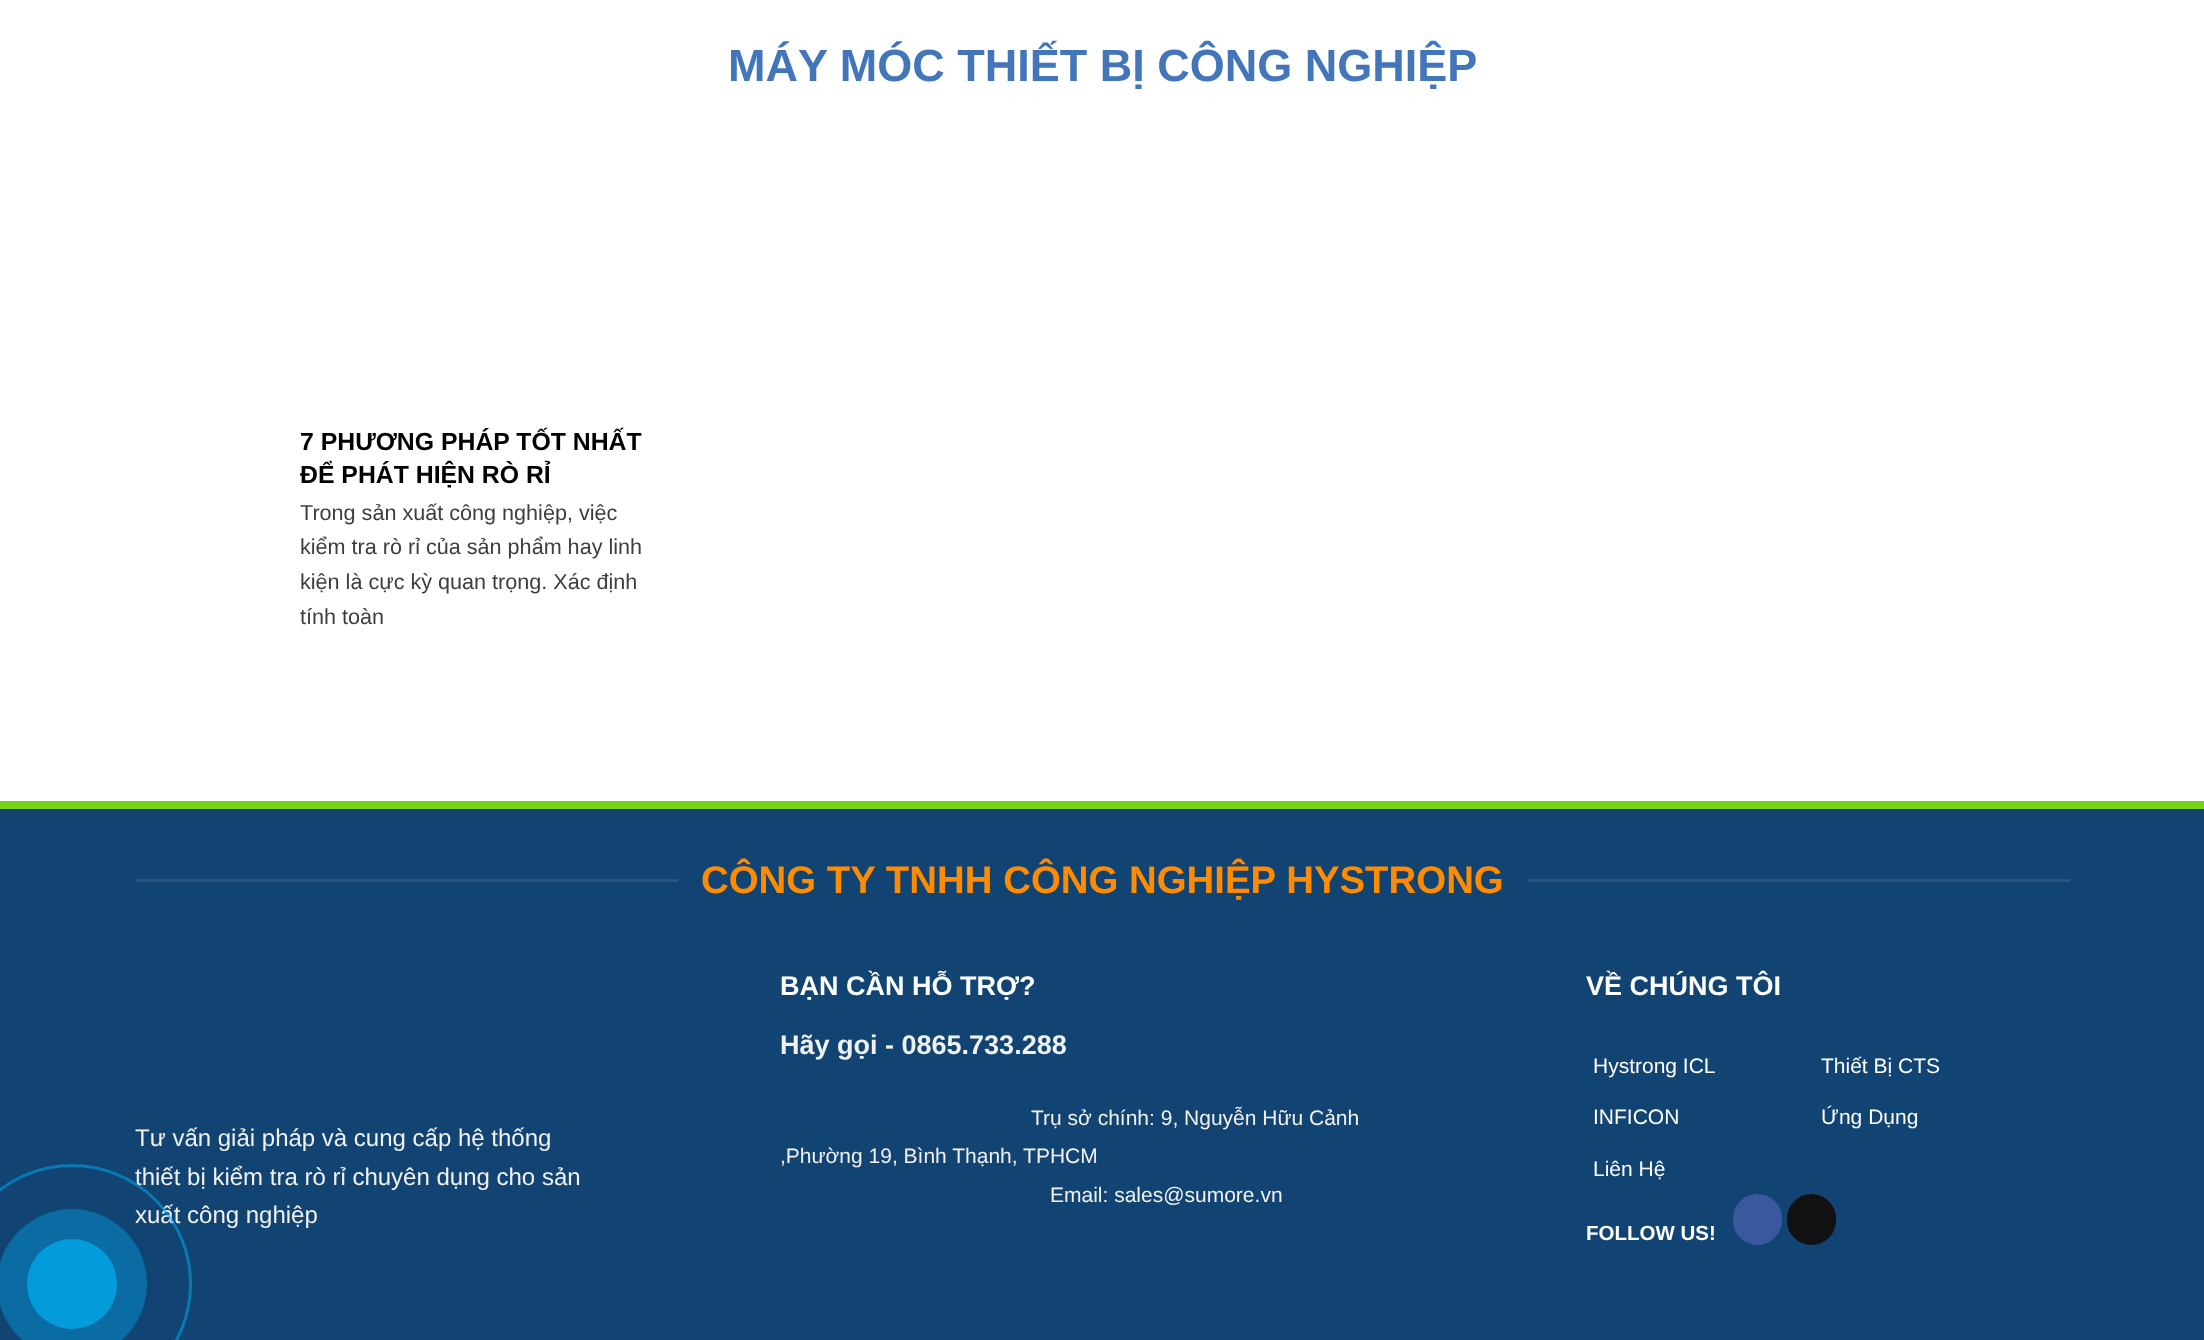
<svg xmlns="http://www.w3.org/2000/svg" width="2204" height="1340">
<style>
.a{font:bold 45px Liberation Sans;fill:#4375ba}
.b{font:bold 24.8px Liberation Sans;fill:#000}
.c{font:21.6px Liberation Sans;fill:#3d3d3d}
.d{font:bold 38.4px Liberation Sans;fill:#ff8c00}
.e{font:24px Liberation Sans;fill:#f1f1f1}
.f{font:bold 27px Liberation Sans;fill:#fff}
.g{font:bold 27px Liberation Sans;fill:#f1f1f1}
.h{font:21px Liberation Sans;fill:#f1f1f1}
.i{font:21px Liberation Sans;fill:#fff}
.j{font:bold 20.5px Liberation Sans;fill:#fff}
</style>
<rect width="100%" height="100%" fill="#fff"/>
<path fill="#75d216" d="M0 801h2204v8H0z"/>
<path fill="#114373" d="M0 811h2204v529H0z"/>
<path fill="#10406d" d="M0 809h2204v2H0z"/>
<path fill="#295681" d="M135 879h543v3H135z"/>
<path fill="#295681" d="M1527 879h543v3H1527z"/>
<rect fill="#3a589d" stroke="#3a589d" stroke-width="2" x="1734" y="1195" width="47" height="49" rx="23.5"/>
<rect fill="#111" stroke="#111" stroke-width="2" x="1788" y="1195" width="47" height="49" rx="23.5"/>
<text class="a" x="728" y="81">MÁY MÓC THIẾT BỊ CÔNG NGHIỆP</text>
<text class="b" x="300" y="450">7 PHƯƠNG PHÁP TỐT NHẤT</text>
<text class="b" x="300" y="483">ĐỂ PHÁT HIỆN RÒ RỈ</text>
<text class="c" x="300" y="520">Trong sản xuất công nghiệp, việc</text>
<text class="c" x="300" y="554">kiểm tra rò rỉ của sản phẩm hay linh</text>
<text class="c" x="300" y="589">kiện là cực kỳ quan trọng. Xác định</text>
<text class="c" x="300" y="624">tính toàn</text>
<text class="d" x="701" y="893">CÔNG TY TNHH CÔNG NGHIỆP HYSTRONG</text>
<text class="e" x="135" y="1146">Tư vấn giải pháp và cung cấp hệ thống</text>
<text class="e" x="135" y="1185">thiết bị kiểm tra rò rỉ chuyên dụng cho sản</text>
<text class="e" x="135" y="1223">xuất công nghiệp</text>
<text class="f" x="780" y="995">BẠN CẦN HỖ TRỢ?</text>
<text class="g" x="780" y="1054">Hãy gọi - 0865.733.288</text>
<text class="h" x="1031" y="1125">Trụ sở chính: 9, Nguyễn Hữu Cảnh</text>
<text class="h" x="780" y="1163">,Phường 19, Bình Thạnh, TPHCM</text>
<text class="h" x="1050" y="1202">Email: sales@sumore.vn</text>
<text class="f" x="1586" y="995">VỀ CHÚNG TÔI</text>
<text class="i" x="1593" y="1073">Hystrong ICL</text>
<text class="i" x="1821" y="1073">Thiết Bị CTS</text>
<text class="i" x="1593" y="1124">INFICON</text>
<text class="i" x="1821" y="1124">Ứng Dụng</text>
<text class="i" x="1593" y="1176">Liên Hệ</text>
<text class="j" x="1586" y="1240">FOLLOW US!</text>
<circle fill="none" stroke="#00aff280" stroke-width="3" cx="72" cy="1284" r="118.5"/>
<circle fill="#0b6ca3" cx="72" cy="1284" r="75"/>
<circle fill="#039bda" cx="72" cy="1284" r="45"/>
</svg>
